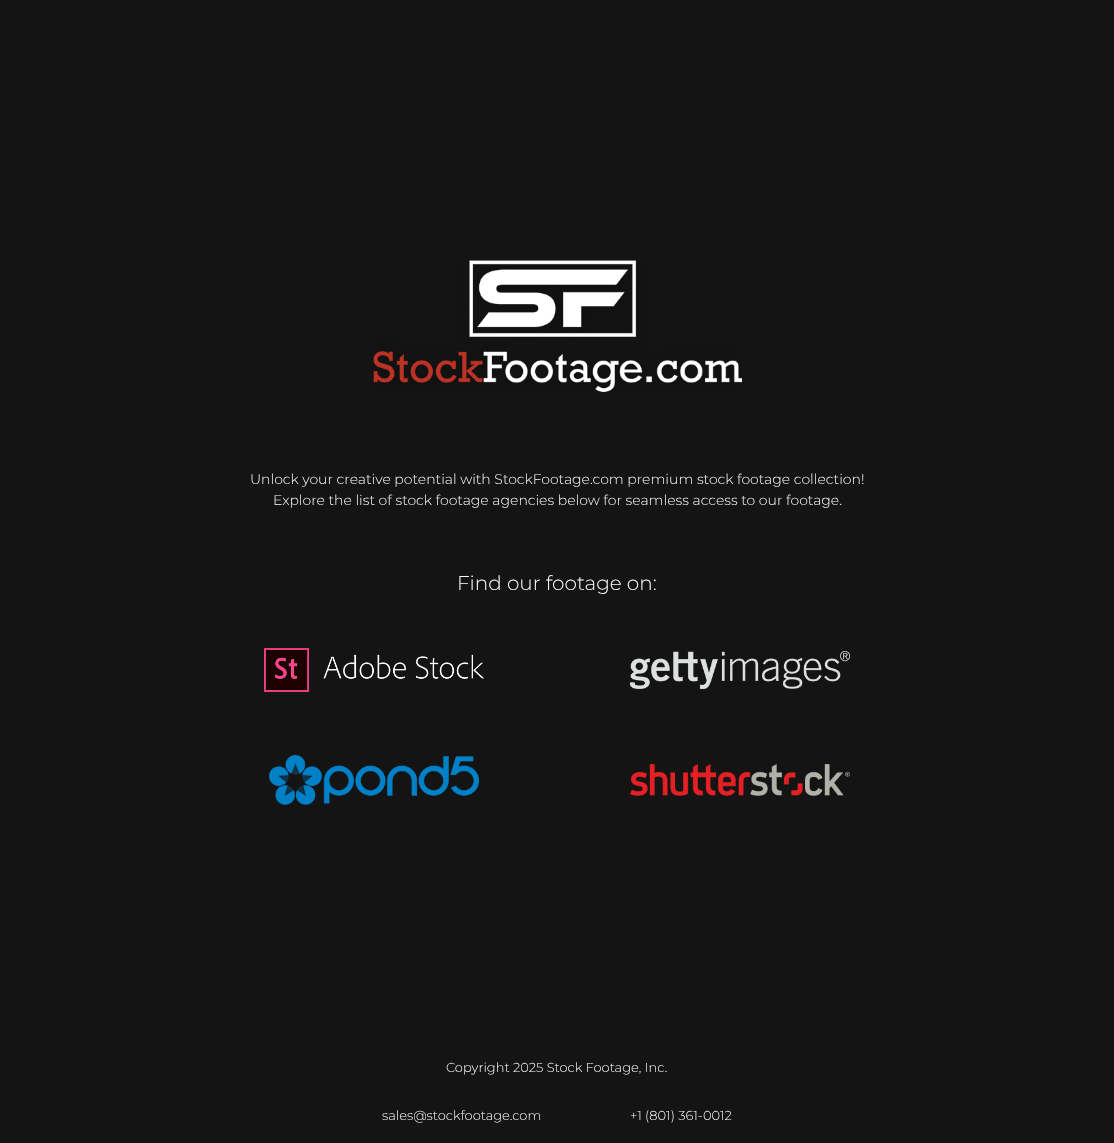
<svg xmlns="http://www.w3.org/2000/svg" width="1114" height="1143">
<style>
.a{font:300 14px Montserrat;fill:#fff}
.b{font:300 20px Montserrat;fill:#fff}
.c{font:300 13px Montserrat;fill:#fff}
</style>
<rect width="100%" height="100%" fill="#141414"/>
<image href="1.png" x="373" y="260" width="369" height="132"/>
<image href="2.png" x="264" y="648" width="220" height="44"/>
<image href="3.png" x="630" y="651" width="220" height="38"/>
<image href="4.png" x="269" y="755" width="210" height="50"/>
<image href="5.png" x="630" y="764" width="220" height="32"/>
<text class="a" x="250" y="484">Unlock your creative potential with StockFootage.com premium stock footage collection!</text>
<text class="a" x="273" y="505">Explore the list of stock footage agencies below for seamless access to our footage.</text>
<text class="b" x="457" y="590">Find our footage on:</text>
<text class="c" x="446" y="1072">Copyright 2025 Stock Footage, Inc.</text>
<text class="c" x="382" y="1120">sales@stockfootage.com</text>
<text class="c" x="630" y="1120">+1 (801) 361-0012</text>
</svg>
